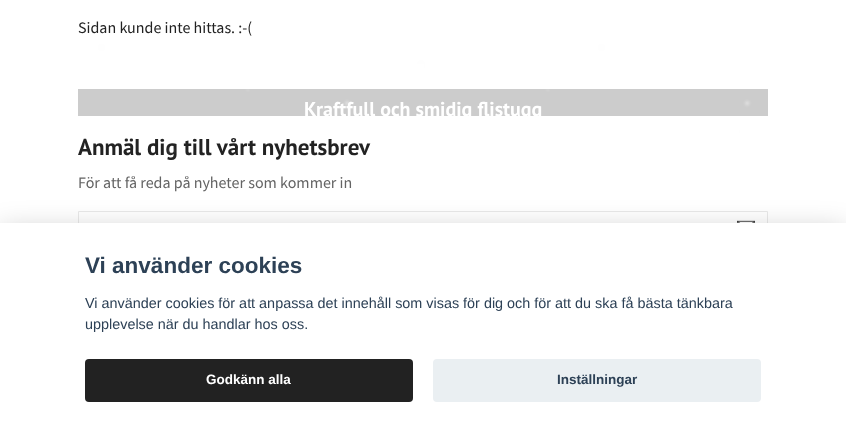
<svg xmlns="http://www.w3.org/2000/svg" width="846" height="432">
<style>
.a{font:16px Source Sans Pro;fill:#222}
.b{font:bold 20px PT Sans;fill:#fff}
.c{font:bold 23px PT Sans;fill:#222}
.d{font:16px Source Sans Pro;fill:#646464}
.e{font:bold 22.5px Liberation Sans;fill:#2d4156}
.f{font:14.4px Liberation Sans;fill:#2d4156}
.g{font:bold 13.5px Liberation Sans;fill:#fff}
.h{font:bold 13.5px Liberation Sans;fill:#2d4156}
</style>
<defs>
<clipPath id="clip1"><path d="M78 89h690v27H78z"/></clipPath>
</defs>
<rect width="100%" height="100%" fill="#fff"/>
<path fill="#ccc" d="M78 89h690v27H78z"/>
<path fill="none" stroke="#e9e9e9" d="M78.5 211.5h689v34H78.5z"/>
<image href="1.png" x="737" y="220" width="18" height="3"/>
<text class="a" x="78" y="33">Sidan kunde inte hittas. :-(</text>
<g clip-path="url(#clip1)">
<text class="b" x="304" y="116">Kraftfull och smidig flistugg</text>
</g>
<text class="c" x="78" y="155">Anmäl dig till vårt nyhetsbrev</text>
<text class="d" x="78" y="188">För att få reda på nyheter som kommer in</text>
<image href="2.png" x="36" y="26" width="810" height="168"/>
<path fill="#02020347" filter="blur(15px)" d="M0 233h846v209H0z"/>
<path fill="#fff" d="M0 223h846v209H0z"/>
<text class="e" x="85" y="273">Vi använder cookies</text>
<text class="f" x="85" y="308">Vi använder cookies för att anpassa det innehåll som visas för dig och för att du ska få bästa tänkbara</text>
<text class="f" x="85" y="329">upplevelse när du handlar hos oss.</text>
<rect fill="#222" x="85" y="359" width="328" height="43" rx="4"/>
<text class="g" x="206" y="384">Godkänn alla</text>
<rect fill="#eaeff2" x="433" y="359" width="328" height="43" rx="4"/>
<text class="h" x="557" y="384">Inställningar</text>
</svg>
